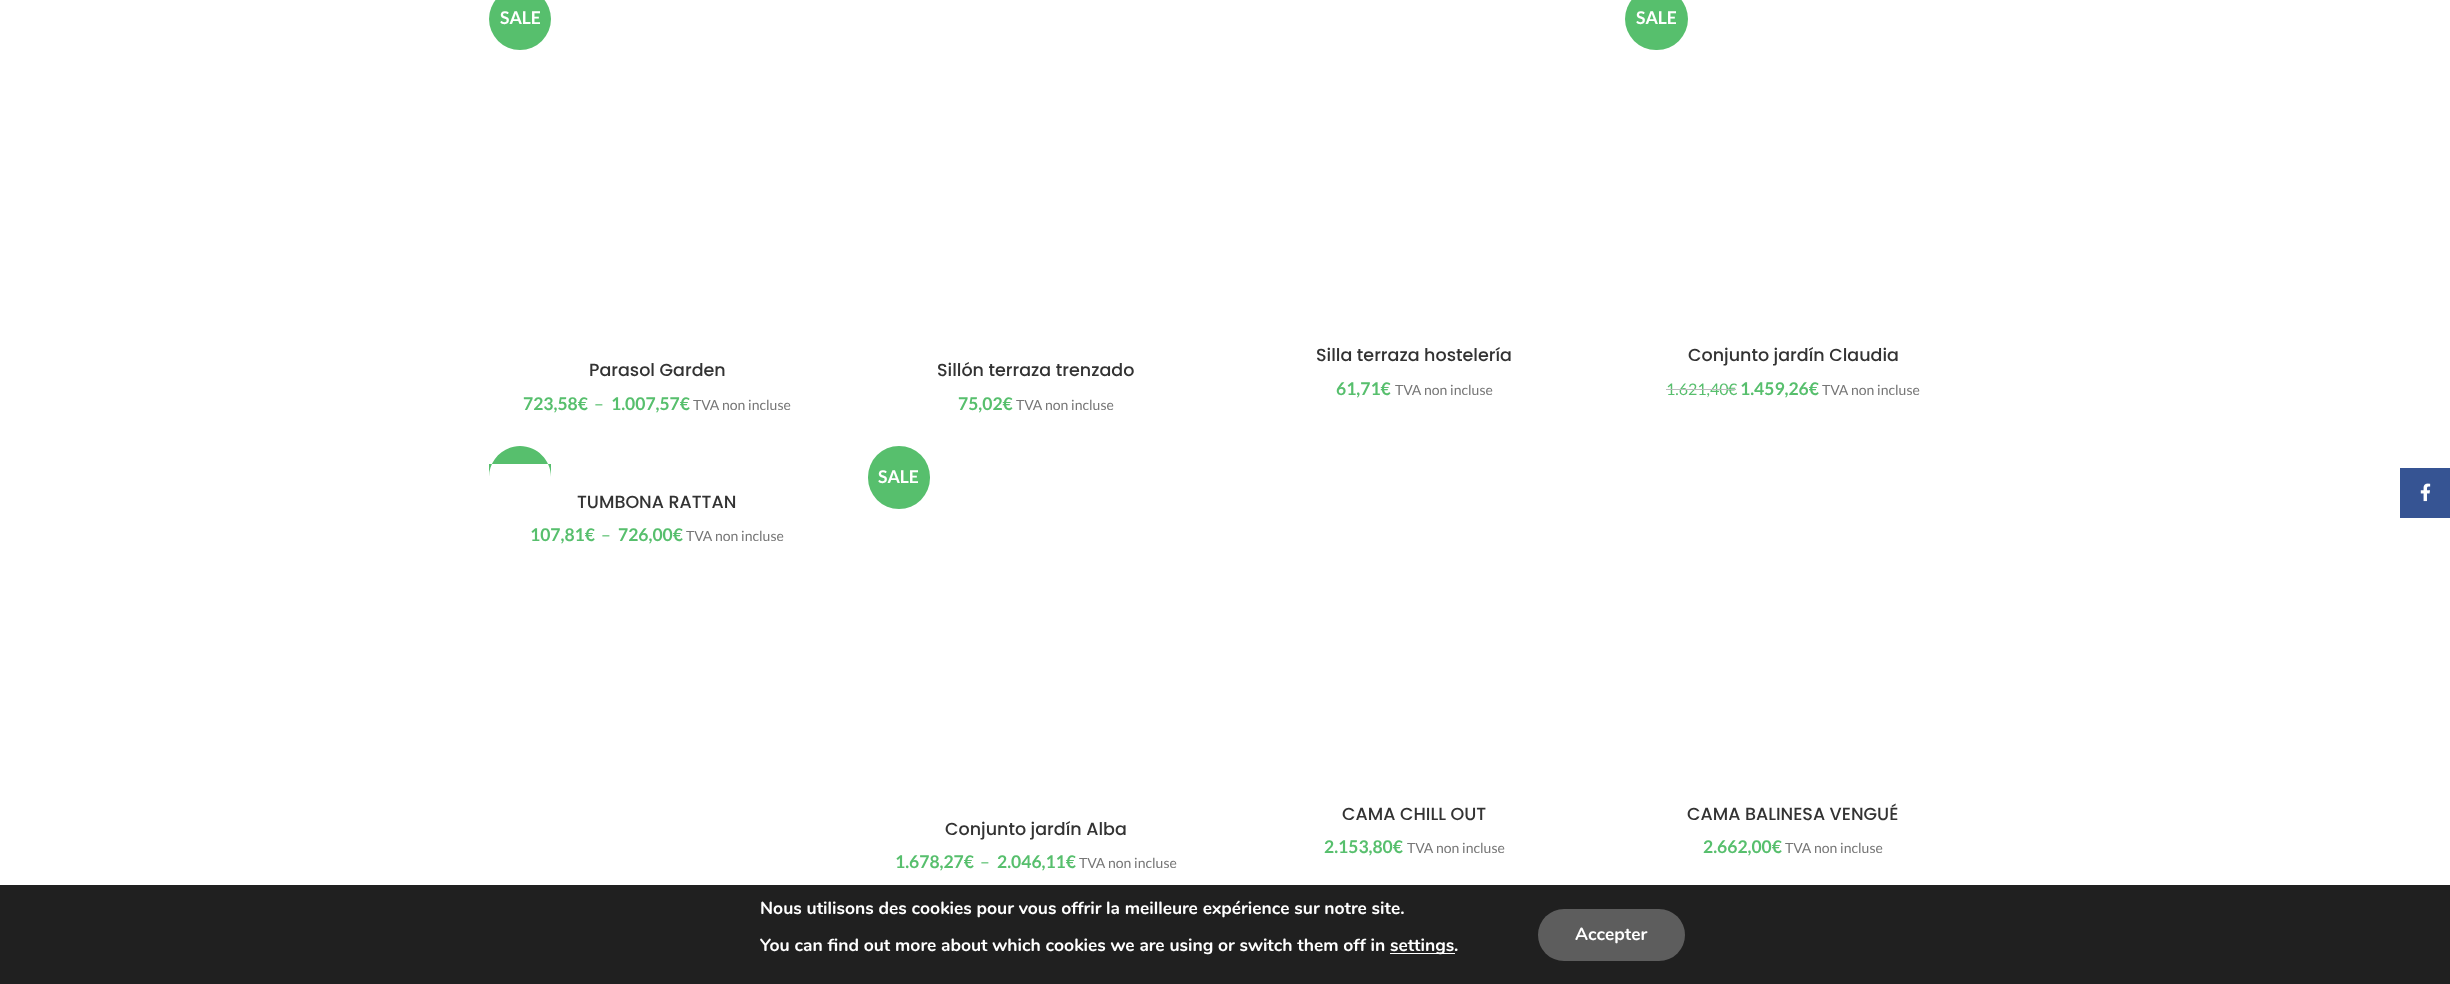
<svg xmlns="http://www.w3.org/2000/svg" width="2450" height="984">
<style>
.a{font:bold 17.5px Lato;fill:#fff}
.b{font:500 17.5px Poppins;fill:#333}
.c{font:bold 17.5px Lato;fill:#57bf6d}
.d{font:17.5px Lato;fill:#57bf6d}
.e{font:14px Lato;fill:#767676}
.f{font:16px Lato;fill:#57bf6d}
.g{font:bold 17.5px Nunito;fill:#fff}
</style>
<rect width="100%" height="100%" fill="#fff"/>
<circle fill="#57bf6d" cx="520" cy="19" r="31"/>
<rect fill="#57bf6d" x="1625" y="-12" width="63" height="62" rx="31"/>
<path fill="#57bf6d" d="M520 446c17 0 31 14 31 31v-13h-62v13c0-17 14-31 31-31z"/>
<rect fill="#57bf6d" x="868" y="446" width="62" height="63" rx="31"/>
<path fill="#365493" d="M2400 468h50v50H2400z"/>
<image href="1.png" x="2420" y="483" width="11" height="19"/>
<path fill="#202020" d="M0 885h2450v99H0z"/>
<path fill="#fff" d="M1390 953h65v1H1390z"/>
<rect fill="#5d5d5d" x="1538" y="909" width="147" height="52" rx="26"/>
<text class="a" x="500" y="24">SALE</text>
<text class="b" x="589" y="376">Parasol Garden</text>
<text class="c" x="523" y="410">723,58€</text>
<text class="d" x="594" y="410">–</text>
<text class="c" x="611" y="410">1.007,57€</text>
<text class="e" x="693" y="410">TVA non incluse</text>
<text class="b" x="937" y="376">Sillón terraza trenzado</text>
<text class="c" x="958" y="410">75,02€</text>
<text class="e" x="1016" y="410">TVA non incluse</text>
<text class="b" x="1316" y="361">Silla terraza hostelería</text>
<text class="c" x="1336" y="395">61,71€</text>
<text class="e" x="1395" y="395">TVA non incluse</text>
<text class="a" x="1636" y="24">SALE</text>
<text class="b" x="1688" y="361">Conjunto jardín Claudia</text>
<text class="f" x="1666" y="395">1.621,40</text>
<path fill="#bbb" d="M1666 389h62v1H1666z"/>
<text class="f" x="1728" y="395">€</text>
<path fill="#bbb" d="M1728 389h8v1H1728z"/>
<text class="c" x="1740" y="395">1.459,26€</text>
<text class="e" x="1822" y="395">TVA non incluse</text>
<text class="b" x="577" y="508">TUMBONA RATTAN</text>
<text class="c" x="530" y="541">107,81€</text>
<text class="d" x="601" y="541">–</text>
<text class="c" x="618" y="541">726,00€</text>
<text class="e" x="686" y="541">TVA non incluse</text>
<text class="a" x="878" y="483">SALE</text>
<text class="b" x="945" y="835">Conjunto jardín Alba</text>
<text class="c" x="895" y="868">1.678,27€</text>
<text class="d" x="980" y="868">–</text>
<text class="c" x="997" y="868">2.046,11€</text>
<text class="e" x="1079" y="868">TVA non incluse</text>
<text class="b" x="1342" y="820">CAMA CHILL OUT</text>
<text class="c" x="1324" y="853">2.153,80€</text>
<text class="e" x="1407" y="853">TVA non incluse</text>
<text class="b" x="1687" y="820">CAMA BALINESA VENGUÉ</text>
<text class="c" x="1703" y="853">2.662,00€</text>
<text class="e" x="1785" y="853">TVA non incluse</text>
<text class="g" x="760" y="914">Nous utilisons des cookies pour vous offrir la meilleure expérience sur notre site.</text>
<text class="g" x="760" y="951">You can find out more about which cookies we are using or switch them off in</text>
<text class="g" x="1390" y="951">settings</text>
<text class="g" x="1454" y="951">.</text>
<text class="g" x="1575" y="940">Accepter</text>
</svg>
